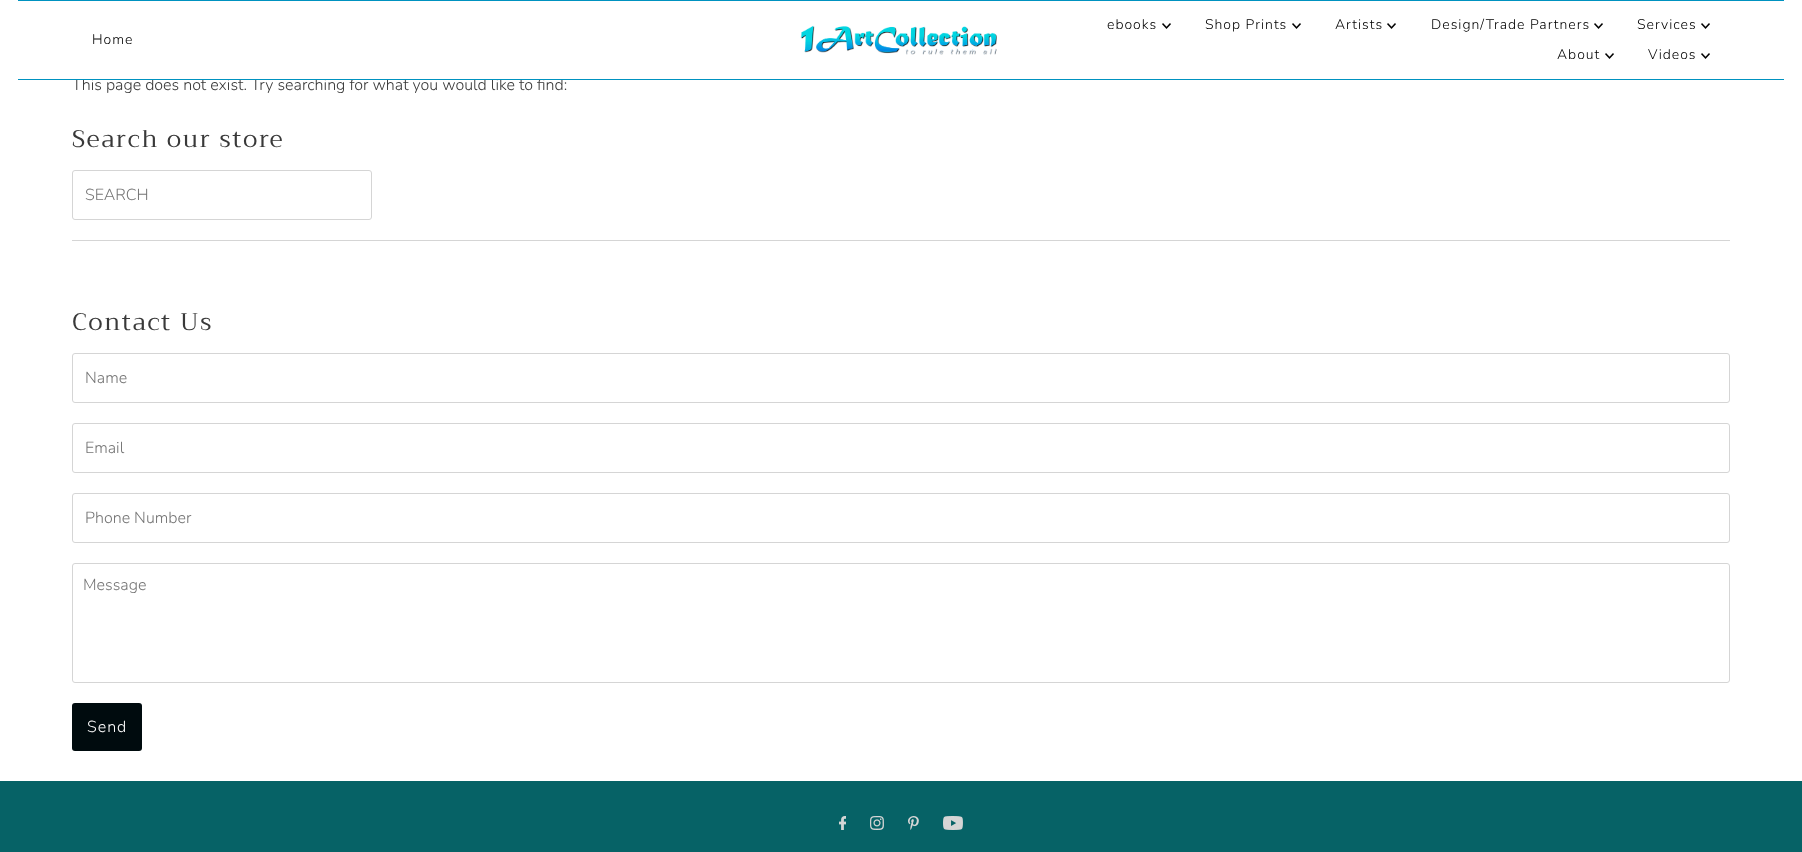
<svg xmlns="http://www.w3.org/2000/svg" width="1802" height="852">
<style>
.a{font:300 14px Nunito;letter-spacing:1px;fill:#000}
.b{font:300 16px Nunito;fill:#393939}
.c{font:24px Trirong;letter-spacing:1.75px;fill:#393939}
.d{font:300 16px Nunito;fill:#757575}
.e{font:300 16px Nunito;letter-spacing:1px;fill:#fff}
</style>
<rect width="100%" height="100%" fill="#fff"/>
<path fill="#0092c0" d="M18 0h1766v1H18z"/>
<image href="1.png" x="800" y="25" width="197" height="30"/>
<image href="2.png" x="1162" y="23" width="9" height="6"/>
<image href="2.png" x="1292" y="23" width="9" height="6"/>
<image href="2.png" x="1387" y="23" width="9" height="6"/>
<image href="2.png" x="1594" y="23" width="9" height="6"/>
<image href="2.png" x="1701" y="23" width="9" height="6"/>
<image href="2.png" x="1605" y="53" width="9" height="6"/>
<image href="2.png" x="1701" y="53" width="9" height="6"/>
<path fill="#d5d5d5" d="M72 240h1658v1H72z"/>
<rect fill="none" stroke="#d5d5d5" x="72.5" y="170.5" width="299" height="49" rx="2.5"/>
<rect fill="none" stroke="#d5d5d5" x="72.5" y="353.5" width="1657" height="49" rx="2.5"/>
<rect fill="none" stroke="#d5d5d5" x="72.5" y="423.5" width="1657" height="49" rx="2.5"/>
<rect fill="none" stroke="#d5d5d5" x="72.5" y="493.5" width="1657" height="49" rx="2.5"/>
<rect fill="none" stroke="#d5d5d5" x="72.5" y="563.5" width="1657" height="119" rx="2.5"/>
<rect fill="#000b0e" x="72" y="703" width="70" height="48" rx="3"/>
<path fill="#066266" d="M0 781h1802v71H0z"/>
<image href="3.png" x="839" y="816" width="7" height="14"/>
<image href="4.png" x="870" y="816" width="14" height="14"/>
<image href="5.png" x="908" y="816" width="11" height="14"/>
<image href="6.png" x="943" y="816" width="20" height="14"/>
<text class="a" x="92" y="44">Home</text>
<text class="a" x="1107" y="29">ebooks</text>
<text class="a" x="1205" y="29">Shop Prints</text>
<text class="a" x="1335" y="29">Artists</text>
<text class="a" x="1431" y="29">Design/Trade Partners</text>
<text class="a" x="1637" y="29">Services</text>
<text class="a" x="1557" y="59">About</text>
<text class="a" x="1648" y="59">Videos</text>
<text class="b" x="72" y="90">This page does not exist. Try searching for what you would like to find:</text>
<path fill="#fff" d="M71 78h492v2H71z"/>
<path fill="#0092c0" d="M18 79h1766v1H18z"/>
<text class="c" x="72" y="147">Search our store</text>
<text class="d" x="85" y="200">SEARCH</text>
<text class="c" x="72" y="330">Contact Us</text>
<text class="d" x="85" y="383">Name</text>
<text class="d" x="85" y="453">Email</text>
<text class="d" x="85" y="523">Phone Number</text>
<text class="d" x="83" y="590">Message</text>
<text class="e" x="87" y="732">Send</text>
</svg>
